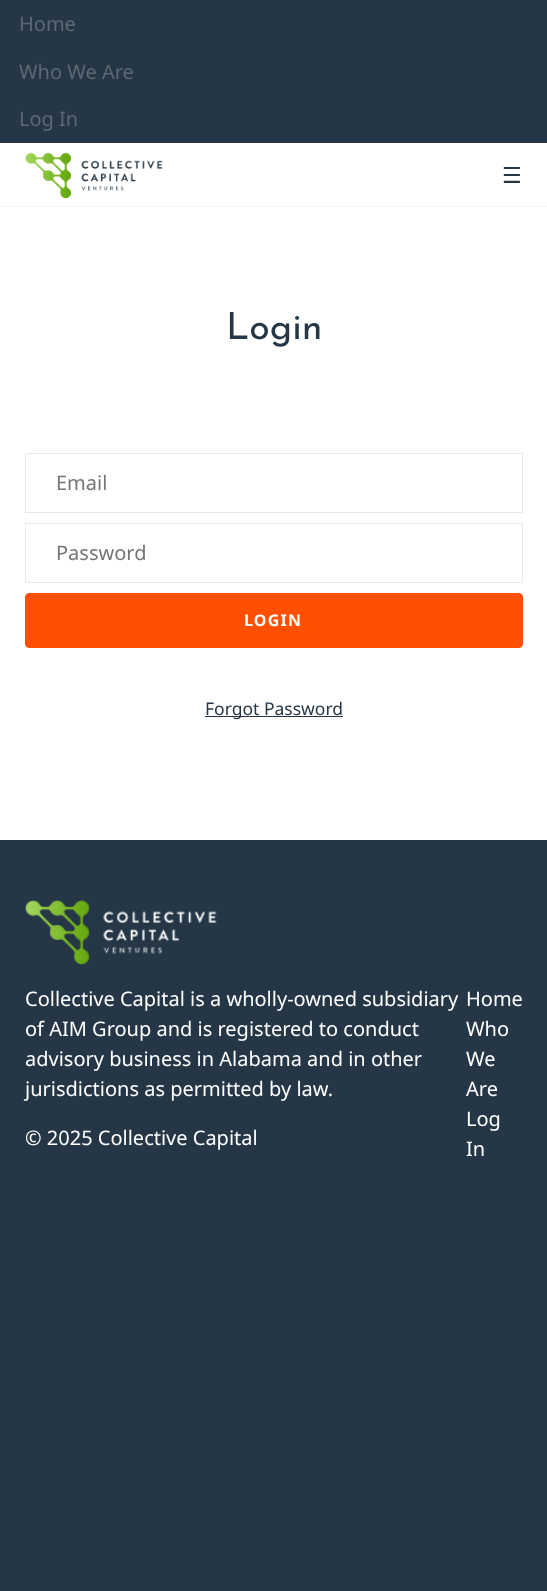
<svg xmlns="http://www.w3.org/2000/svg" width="547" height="1591">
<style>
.a{font:20px Noto Sans;fill:#5c6973}
.b{font:22px DejaVu Sans;fill:#253746}
.c{font:100 37.5px Josefin Sans;fill:#253746}
.d{font:20px Noto Sans;fill:#757575}
.e{font:bold 16px Noto Sans;letter-spacing:1.25px;fill:#fff}
.f{font:17.5px Noto Sans;fill:#253746}
.g{font:20px Noto Sans;fill:#fff}
</style>
<rect width="100%" height="100%" fill="#253746"/>
<path fill="#fff" d="M0 143h547v697H0z"/>
<path fill="#f4f5f6" d="M0 206h547v1H0z"/>
<image href="1.png" x="25" y="152" width="138" height="47"/>
<path fill="none" stroke="#e9e9e9" d="M25.5 453.5h497v59H25.5z"/>
<path fill="none" stroke="#e9e9e9" d="M25.5 523.5h497v59H25.5z"/>
<rect fill="#fe5000" stroke="#fe5000" x="25.5" y="593.5" width="497" height="54" rx="3.5"/>
<path fill="#253746" d="M205 716h138v1H205z"/>
<image href="2.png" x="25" y="900" width="192" height="65"/>
<text class="a" x="19" y="31">Home</text>
<text class="a" x="19" y="79">Who We Are</text>
<text class="a" x="19" y="126">Log In</text>
<text class="b" x="502" y="183">☰</text>
<text class="c" x="226" y="339">Login</text>
<text class="d" x="56" y="490">Email</text>
<text class="d" x="56" y="560">Password</text>
<text class="e" x="244" y="626">LOGIN</text>
<text class="f" x="205" y="715">Forgot Password</text>
<text class="g" x="25" y="1006">Collective Capital is a wholly-owned subsidiary</text>
<text class="g" x="25" y="1036">of AIM Group and is registered to conduct</text>
<text class="g" x="25" y="1066">advisory business in Alabama and in other</text>
<text class="g" x="25" y="1096">jurisdictions as permitted by law.</text>
<text class="g" x="25" y="1145">© 2025 Collective Capital</text>
<text class="g" x="466" y="1006">Home</text>
<text class="g" x="466" y="1036">Who</text>
<text class="g" x="466" y="1066">We</text>
<text class="g" x="466" y="1096">Are</text>
<text class="g" x="466" y="1126">Log</text>
<text class="g" x="466" y="1156">In</text>
</svg>
